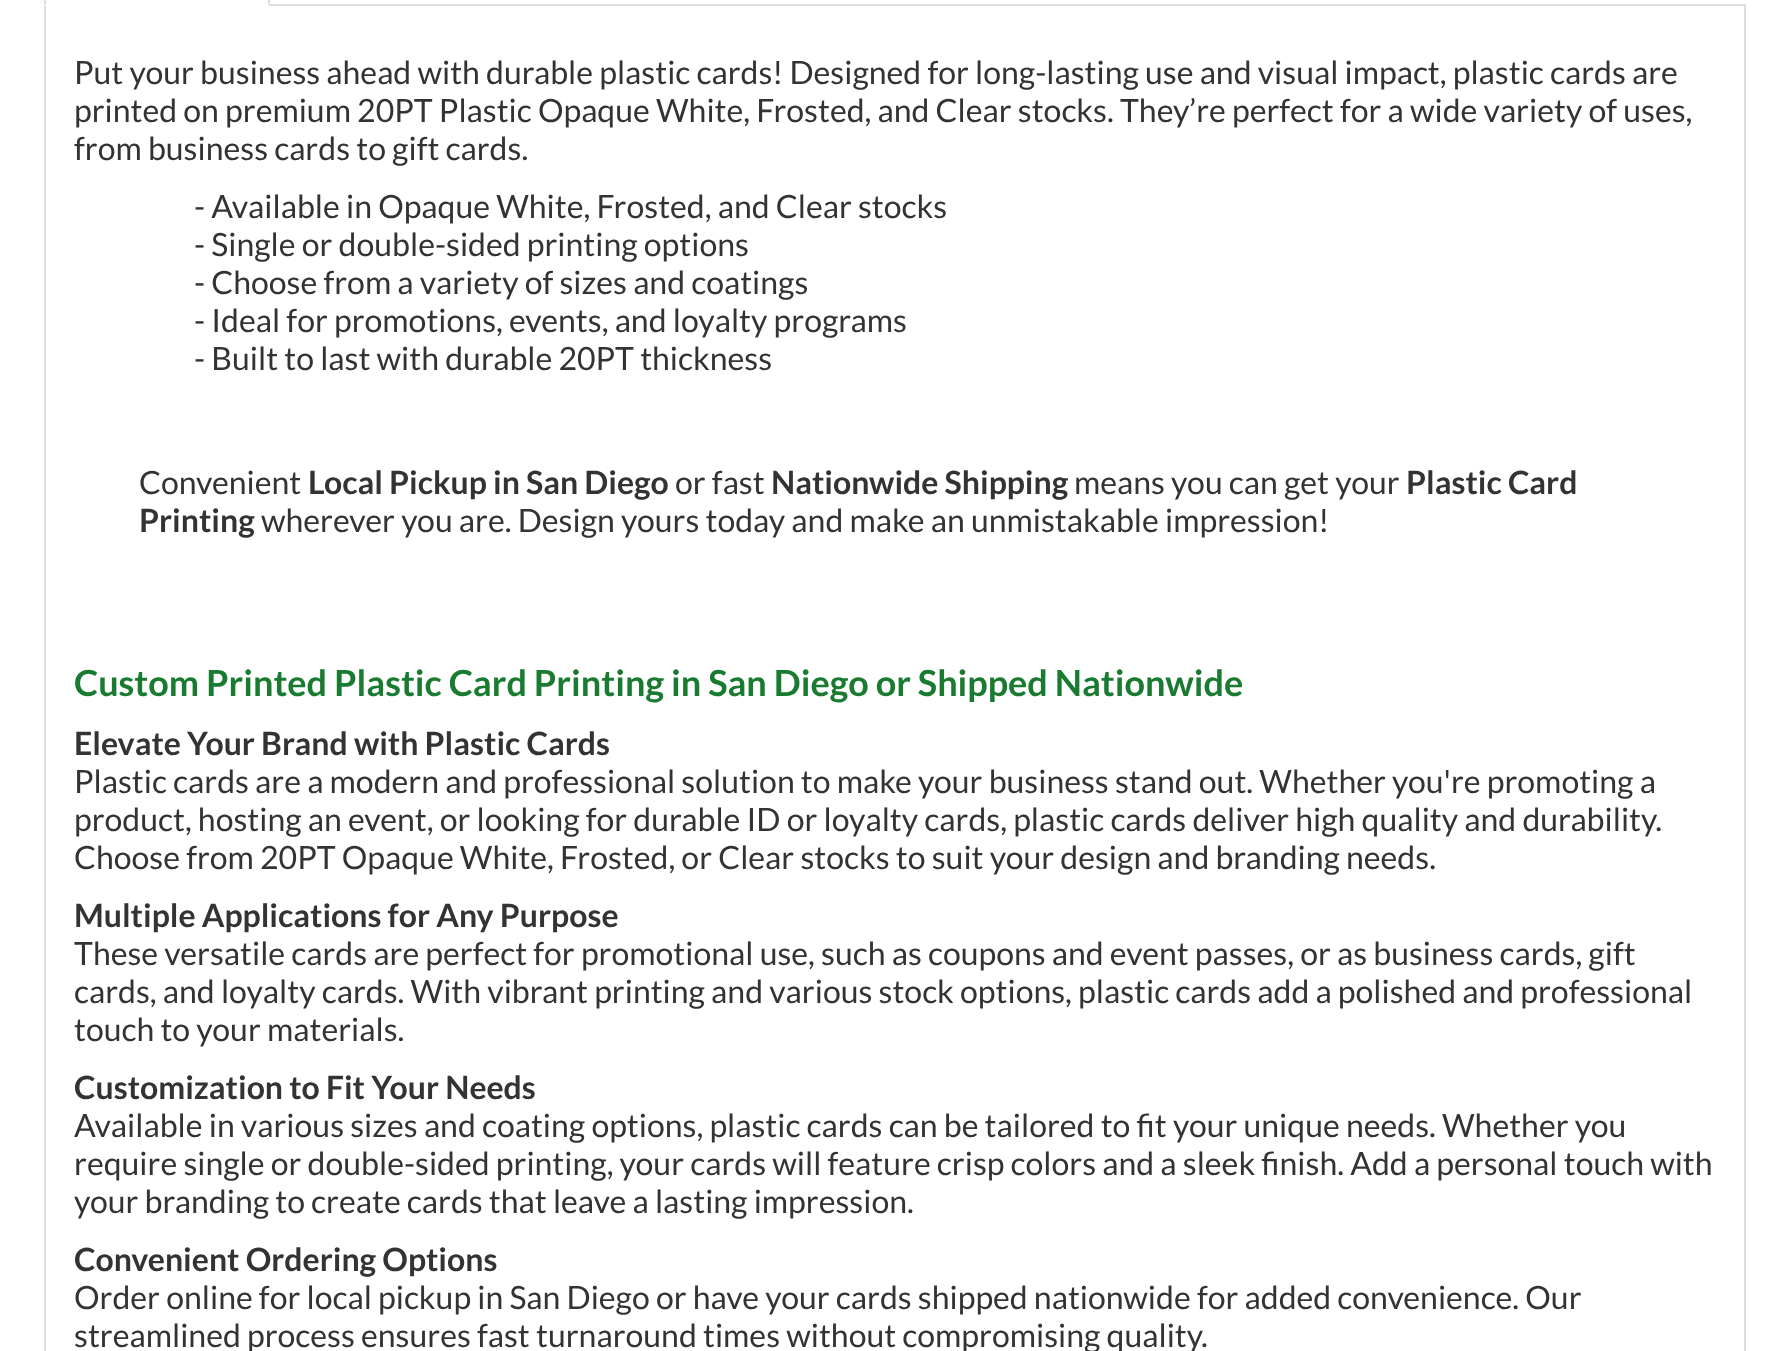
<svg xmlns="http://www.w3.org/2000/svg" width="1790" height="1351">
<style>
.a{font:32px Lato;fill:#333}
.b{font:bold 32px Lato;fill:#333}
.c{font:bold 36px Lato;fill:#197b30}
</style>
<rect width="100%" height="100%" fill="#fff"/>
<path fill="#ddd" d="M270 4h1476v2H270z"/>
<path fill="#ddd" d="M270 6v-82c0-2-1-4-2-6l-2 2l2 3v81z"/>
<path fill="#ddd" d="M44 6l2-2v-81l2-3l-2-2c-1 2-2 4-2 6z"/>
<path fill="#ddd" d="M1744 6h2v1345H1744z"/>
<path fill="#ddd" d="M44 6h2v1345H44z"/>
<text class="a" x="74" y="84">Put your business ahead with durable plastic cards! Designed for long-lasting use and visual impact, plastic cards are</text>
<text class="a" x="74" y="122">printed on premium 20PT Plastic Opaque White, Frosted, and Clear stocks. They’re perfect for a wide variety of uses,</text>
<text class="a" x="74" y="160">from business cards to gift cards.</text>
<text class="a" x="194" y="218">- Available in Opaque White, Frosted, and Clear stocks</text>
<text class="a" x="194" y="256">- Single or double-sided printing options</text>
<text class="a" x="194" y="294">- Choose from a variety of sizes and coatings</text>
<text class="a" x="194" y="332">- Ideal for promotions, events, and loyalty programs</text>
<text class="a" x="194" y="370">- Built to last with durable 20PT thickness</text>
<text class="a" x="139" y="494">Convenient</text>
<text class="b" x="308" y="494">Local Pickup in San Diego</text>
<text class="a" x="675" y="494">or fast</text>
<text class="b" x="771" y="494">Nationwide Shipping</text>
<text class="a" x="1074" y="494">means you can get your</text>
<text class="b" x="1406" y="494">Plastic Card</text>
<text class="b" x="139" y="532">Printing</text>
<text class="a" x="261" y="532">wherever you are. Design yours today and make an unmistakable impression!</text>
<text class="c" x="74" y="696">Custom Printed Plastic Card Printing in San Diego or Shipped Nationwide</text>
<text class="b" x="74" y="755">Elevate Your Brand with Plastic Cards</text>
<text class="a" x="74" y="793">Plastic cards are a modern and professional solution to make your business stand out. Whether you're promoting a</text>
<text class="a" x="74" y="831">product, hosting an event, or looking for durable ID or loyalty cards, plastic cards deliver high quality and durability.</text>
<text class="a" x="74" y="869">Choose from 20PT Opaque White, Frosted, or Clear stocks to suit your design and branding needs.</text>
<text class="b" x="74" y="927">Multiple Applications for Any Purpose</text>
<text class="a" x="74" y="965">These versatile cards are perfect for promotional use, such as coupons and event passes, or as business cards, gift</text>
<text class="a" x="74" y="1003">cards, and loyalty cards. With vibrant printing and various stock options, plastic cards add a polished and professional</text>
<text class="a" x="74" y="1041">touch to your materials.</text>
<text class="b" x="74" y="1099">Customization to Fit Your Needs</text>
<text class="a" x="74" y="1137">Available in various sizes and coating options, plastic cards can be tailored to fit your unique needs. Whether you</text>
<text class="a" x="74" y="1175">require single or double-sided printing, your cards will feature crisp colors and a sleek finish. Add a personal touch with</text>
<text class="a" x="74" y="1213">your branding to create cards that leave a lasting impression.</text>
<text class="b" x="74" y="1271">Convenient Ordering Options</text>
<text class="a" x="74" y="1309">Order online for local pickup in San Diego or have your cards shipped nationwide for added convenience. Our</text>
<text class="a" x="74" y="1347">streamlined process ensures fast turnaround times without compromising quality.</text>
</svg>
